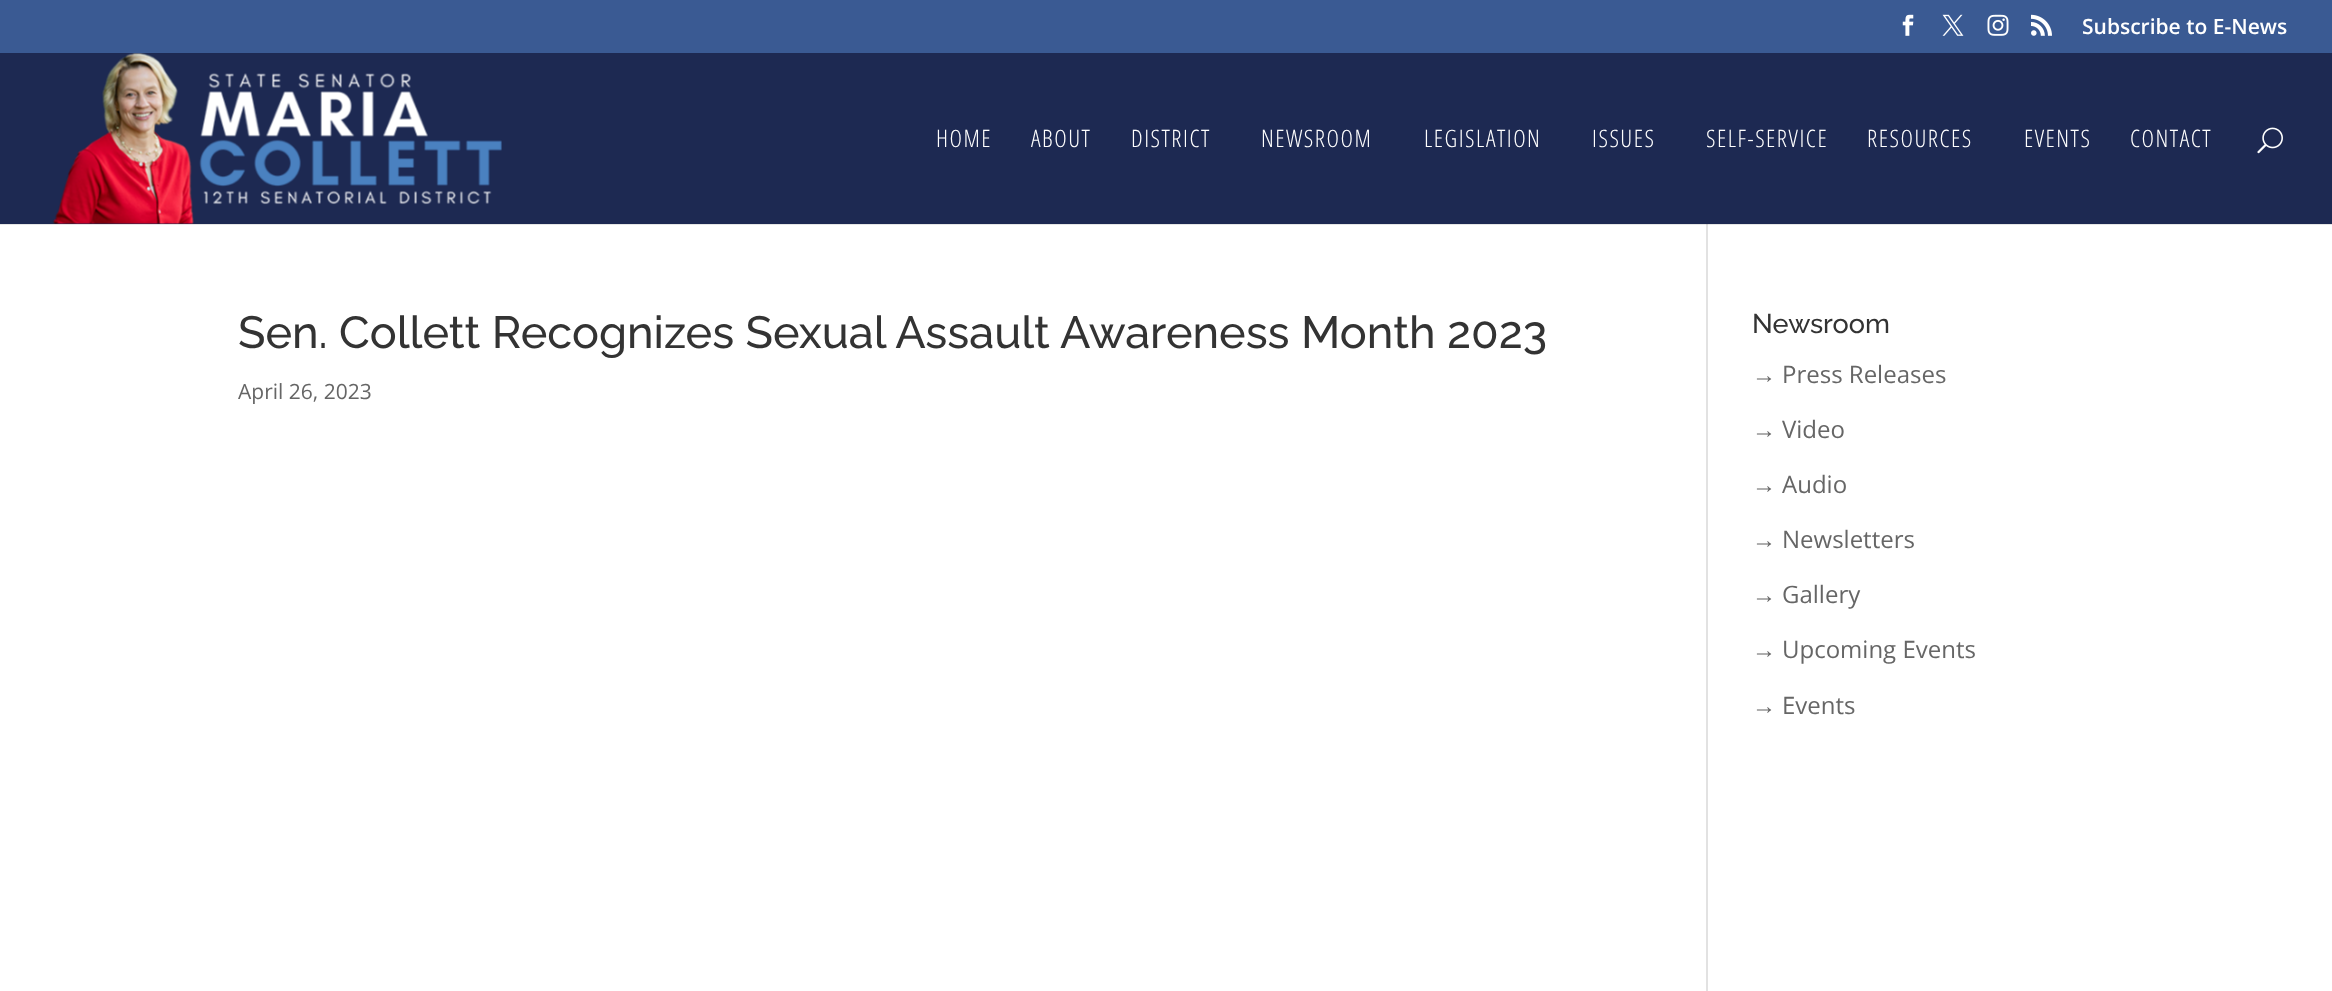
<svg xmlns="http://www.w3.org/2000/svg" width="2332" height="991">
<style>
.a{font:600 21px Open Sans;fill:#fff}
.b{font:300 24px Open Sans Condensed;letter-spacing:1.5px;fill:#fff}
.c{font:500 45px Raleway;fill:#333}
.d{font:21px Open Sans;fill:#666}
.e{font:500 27px Raleway;fill:#333}
.f{font:24px Liberation Sans;fill:#666}
.g{font:24px Open Sans;fill:#666}
</style>
<rect width="100%" height="100%" fill="#fff"/>
<path fill="#3a5a93" d="M0 0h2332v53H0z"/>
<image href="1.png" x="1902" y="14" width="12" height="22"/>
<image href="2.png" x="1942" y="14" width="22" height="22"/>
<image href="3.png" x="1987" y="14" width="22" height="22"/>
<image href="4.png" x="2031" y="14" width="21" height="22"/>
<path fill="#e2e2e2" d="M1706 224h2v767H1706z"/>
<path fill="#0000001a" d="M0 224v1h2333v-171h-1v170z"/>
<path fill="#1d2952" d="M0 53h2332v171H0z"/>
<image href="5.png" x="52" y="53" width="450" height="171"/>
<image href="6.png" x="2257" y="127" width="26" height="27"/>
<text class="a" x="2082" y="34">Subscribe to E-News</text>
<text class="b" x="936" y="147">HOME</text>
<text class="b" x="1031" y="147">ABOUT</text>
<text class="b" x="1131" y="147">DISTRICT</text>
<text class="b" x="1261" y="147">NEWSROOM</text>
<text class="b" x="1424" y="147">LEGISLATION</text>
<text class="b" x="1592" y="147">ISSUES</text>
<text class="b" x="1706" y="147">SELF-SERVICE</text>
<text class="b" x="1867" y="147">RESOURCES</text>
<text class="b" x="2024" y="147">EVENTS</text>
<text class="b" x="2130" y="147">CONTACT</text>
<text class="c" x="238" y="348">Sen. Collett Recognizes Sexual Assault Awareness Month 2023</text>
<text class="d" x="238" y="399">April 26, 2023</text>
<text class="e" x="1752" y="333">Newsroom</text>
<text class="f" x="1752" y="383">→</text>
<text class="g" x="1782" y="383">Press Releases</text>
<text class="f" x="1752" y="438">→</text>
<text class="g" x="1782" y="438">Video</text>
<text class="f" x="1752" y="493">→</text>
<text class="g" x="1782" y="493">Audio</text>
<text class="f" x="1752" y="548">→</text>
<text class="g" x="1782" y="548">Newsletters</text>
<text class="f" x="1752" y="603">→</text>
<text class="g" x="1782" y="603">Gallery</text>
<text class="f" x="1752" y="658">→</text>
<text class="g" x="1782" y="658">Upcoming Events</text>
<text class="f" x="1752" y="714">→</text>
<text class="g" x="1782" y="714">Events</text>
</svg>
